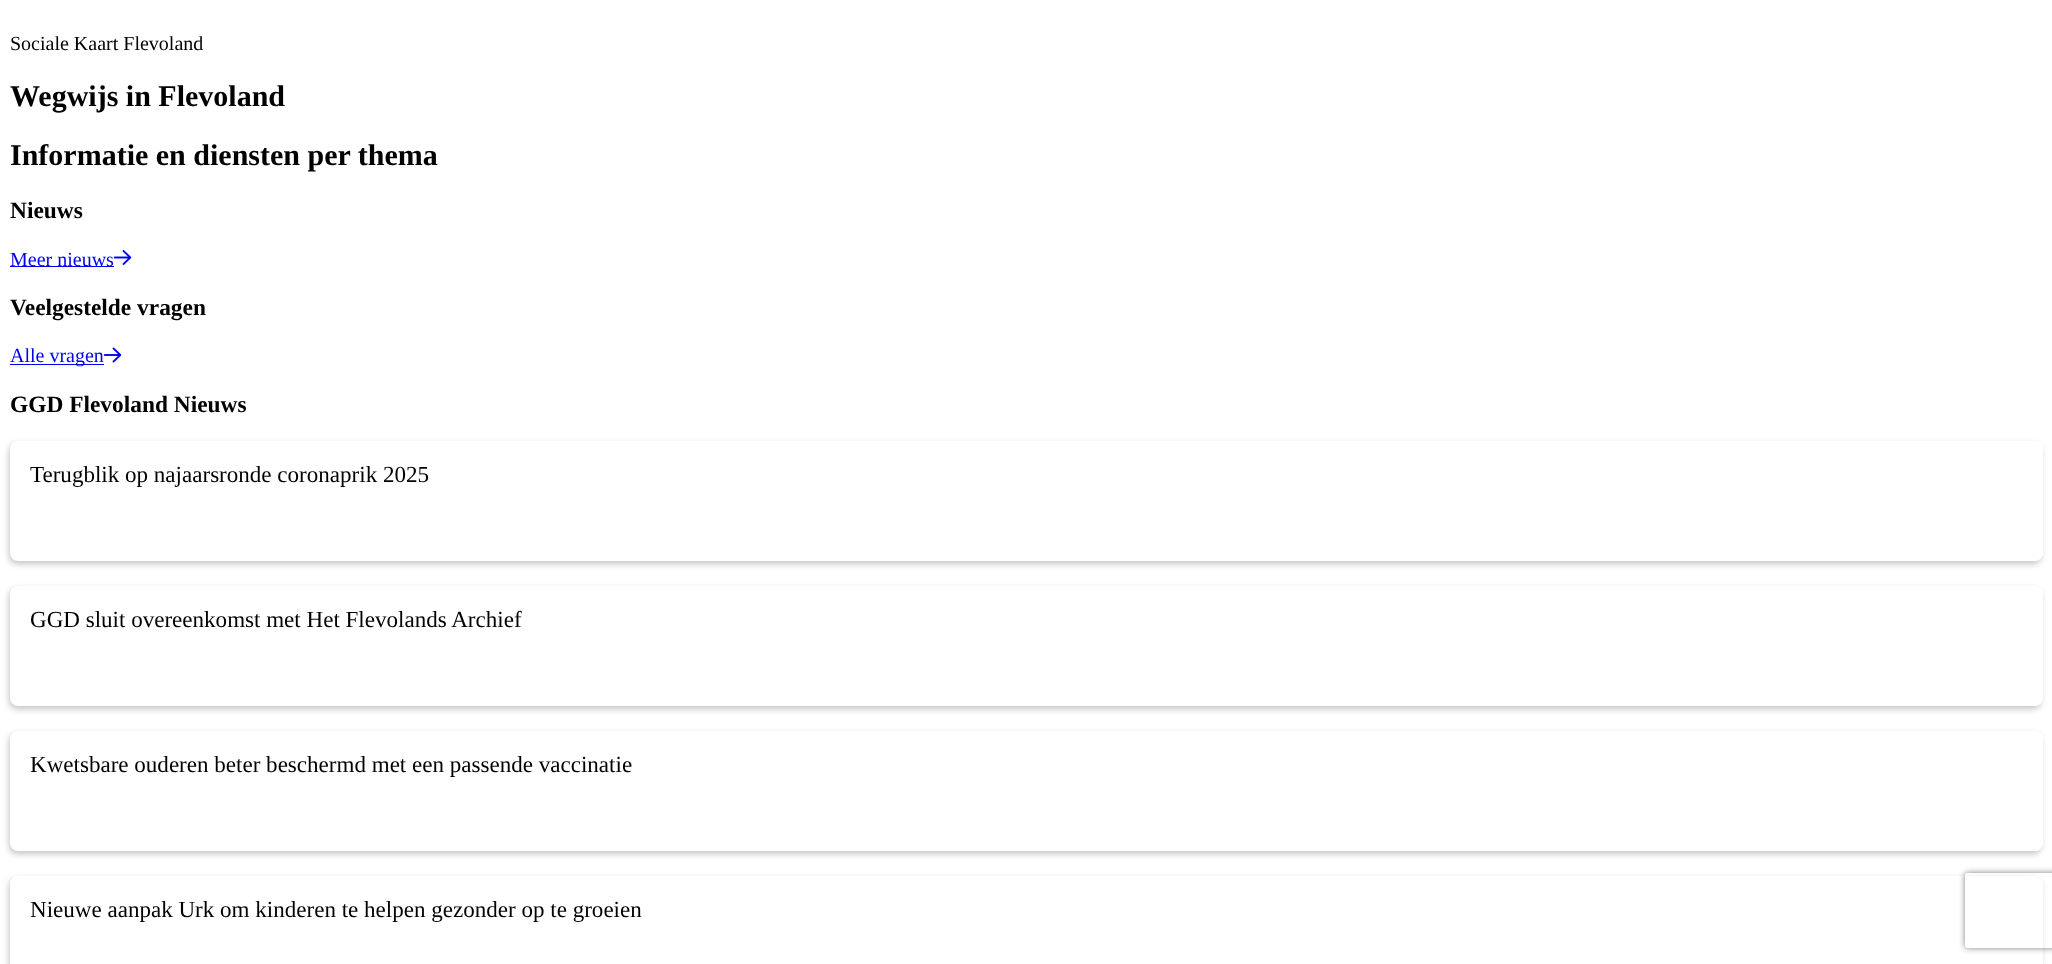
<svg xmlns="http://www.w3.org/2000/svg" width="2052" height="964">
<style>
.a{font:20px Liberation Serif;fill:#000}
.b{font:bold 30px Liberation Serif;fill:#000}
.c{font:bold 23.4px Liberation Serif;fill:#000}
.d{font:20px Liberation Serif;fill:#00e}
.e{font:23.05px Liberation Serif;fill:#000}
</style>
<defs>
<clipPath id="clip1"><path d="M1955 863h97v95h-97zm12.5 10h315c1.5 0 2.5 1 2.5 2.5v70c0 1.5-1 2.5-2.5 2.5h-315c-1.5 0-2.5-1-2.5-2.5v-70c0-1.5 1-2.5 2.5-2.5z" clip-rule="evenodd"/></clipPath>
</defs>
<rect width="100%" height="100%" fill="#fff"/>
<path fill="#00e" d="M10 266h104v1H10z"/>
<path fill="#00e" d="M10 364h94v1H10z"/>
<rect fill="#0000003b" filter="blur(3px)" x="9" y="444" width="2032" height="120" rx="8"/>
<rect fill="#fff" x="10" y="441" width="2033" height="120" rx="8"/>
<rect fill="#0000003b" filter="blur(3px)" x="9" y="589" width="2032" height="120" rx="8"/>
<rect fill="#fff" x="10" y="586" width="2033" height="120" rx="8"/>
<rect fill="#0000003b" filter="blur(3px)" x="9" y="734" width="2032" height="120" rx="8"/>
<rect fill="#fff" x="10" y="731" width="2033" height="120" rx="8"/>
<rect fill="#0000003b" filter="blur(3px)" x="9" y="879" width="2032" height="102" rx="8"/>
<rect fill="#fff" x="10" y="876" width="2033" height="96" rx="8"/>
<g clip-path="url(#clip1)">
<rect fill="#808080" filter="blur(3px)" x="1965" y="873" width="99" height="75" rx="2.5"/>
</g>
<text class="a" x="10" y="50">Sociale Kaart Flevoland</text>
<text class="b" x="10" y="106">Wegwijs in Flevoland</text>
<text class="b" x="10" y="165">Informatie en diensten per thema</text>
<text class="c" x="10" y="218">Nieuws</text>
<text class="d" x="10" y="266">Meer nieuws</text>
<image href="1.png" x="113" y="250" width="19" height="15"/>
<text class="c" x="10" y="315">Veelgestelde vragen</text>
<text class="d" x="10" y="362">Alle vragen</text>
<image href="2.png" x="103" y="347" width="19" height="16"/>
<text class="c" x="10" y="412">GGD Flevoland Nieuws</text>
<text class="e" x="30" y="482">Terugblik op najaarsronde coronaprik 2025</text>
<text class="e" x="30" y="627">GGD sluit overeenkomst met Het Flevolands Archief</text>
<text class="e" x="30" y="772">Kwetsbare ouderen beter beschermd met een passende vaccinatie</text>
<text class="e" x="30" y="917">Nieuwe aanpak Urk om kinderen te helpen gezonder op te groeien</text>
</svg>
